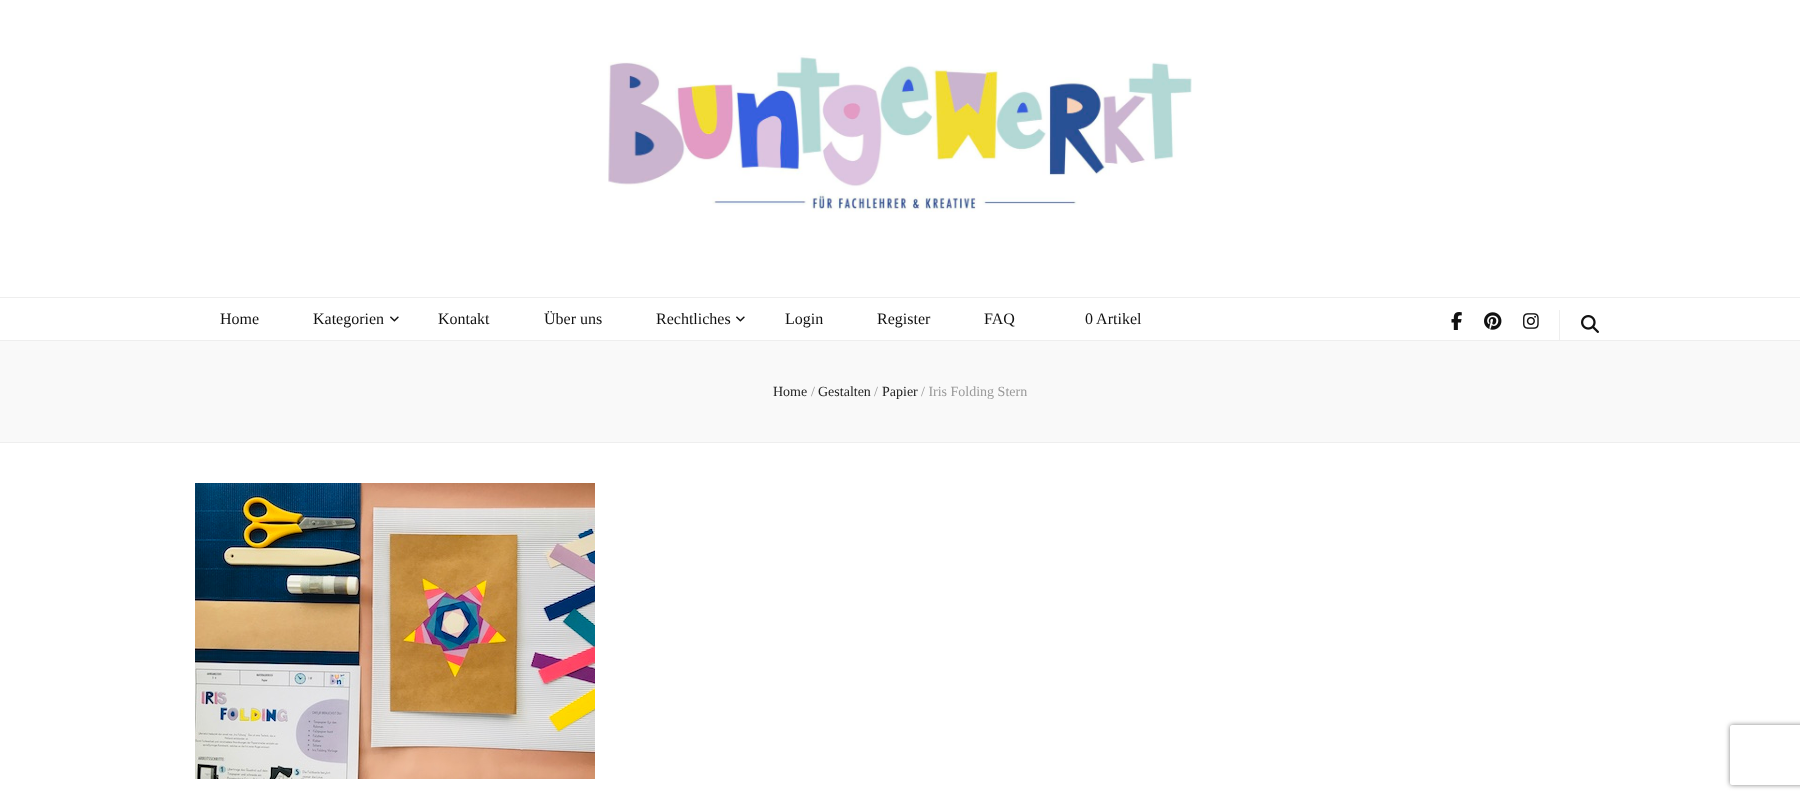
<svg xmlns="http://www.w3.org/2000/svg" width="1800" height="799">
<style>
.a{font:16px Liberation Serif;fill:#111}
.b{font:14px Liberation Serif;fill:#222}
.c{font:14px Liberation Serif;fill:#999}
</style>
<defs>
<clipPath id="clip1"><path d="M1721 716h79v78h-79zm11 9h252c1 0 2 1 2 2v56c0 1-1 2-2 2h-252c-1 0-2-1-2-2v-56c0-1 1-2 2-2z" clip-rule="evenodd"/></clipPath>
</defs>
<rect width="100%" height="100%" fill="#fff"/>
<image href="1.png" x="608" y="55" width="584" height="157"/>
<path fill="#eee" d="M0 297h1800v1H0z"/>
<path fill="#eee" d="M0 340h1800v1H0z"/>
<image href="2.png" x="390" y="316" width="9" height="6"/>
<image href="2.png" x="736" y="316" width="9" height="6"/>
<image href="3.png" x="1451" y="312" width="11" height="18"/>
<image href="4.png" x="1484" y="312" width="18" height="18"/>
<image href="5.png" x="1523" y="313" width="16" height="16"/>
<path fill="#eee" d="M1559 310h1v30H1559z"/>
<image href="6.png" x="1581" y="315" width="18" height="18"/>
<path fill="#f9f9f9" d="M0 341h1800v101H0z"/>
<path fill="#eee" d="M0 442h1800v1H0z"/>
<image href="7.png" x="195" y="483" width="400" height="296"/>
<g clip-path="url(#clip1)">
<rect fill="#808080" filter="blur(2.5px)" x="1730" y="725" width="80" height="60" rx="2"/>
</g>
<text class="a" x="220" y="324">Home</text>
<text class="a" x="313" y="324">Kategorien</text>
<text class="a" x="438" y="324">Kontakt</text>
<text class="a" x="544" y="324">Über uns</text>
<text class="a" x="656" y="324">Rechtliches</text>
<text class="a" x="785" y="324">Login</text>
<text class="a" x="877" y="324">Register</text>
<text class="a" x="984" y="324">FAQ</text>
<text class="a" x="1085" y="324">0 Artikel</text>
<text class="b" x="773" y="396">Home</text>
<text class="c" x="811" y="396">/</text>
<text class="b" x="818" y="396">Gestalten</text>
<text class="c" x="874" y="396">/</text>
<text class="b" x="882" y="396">Papier</text>
<text class="c" x="921" y="396">/ Iris Folding Stern</text>
</svg>
